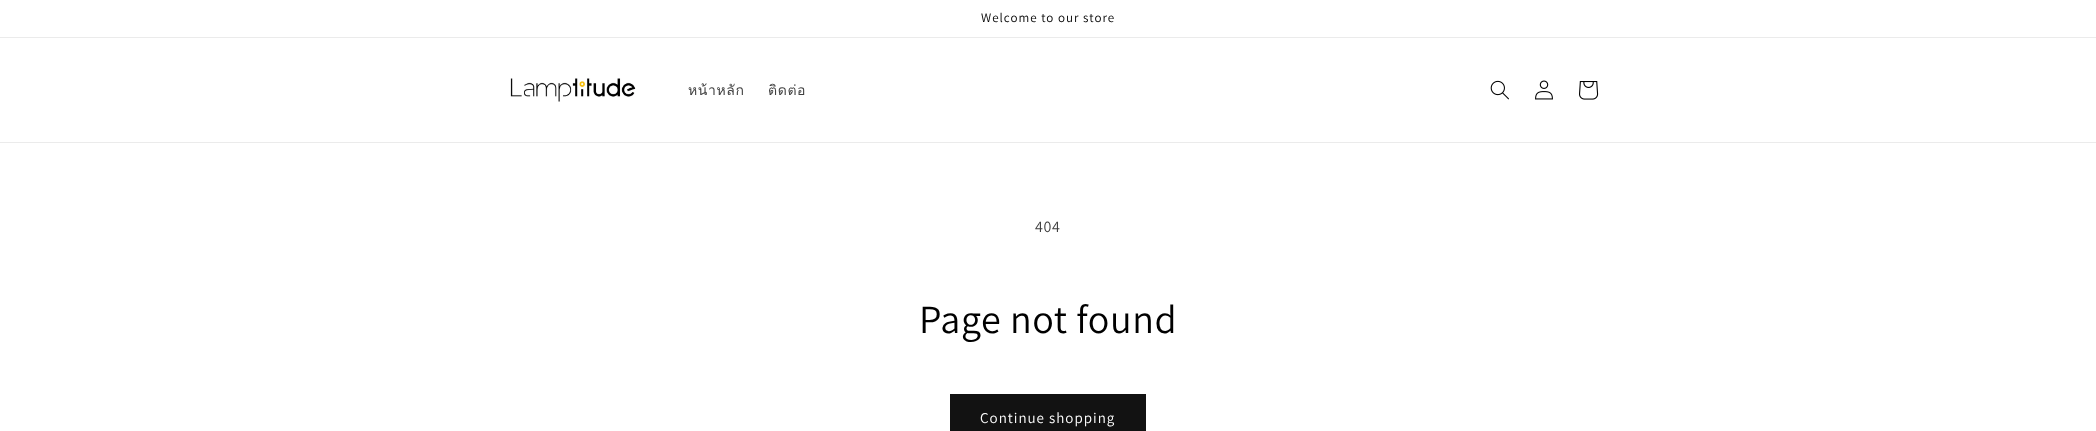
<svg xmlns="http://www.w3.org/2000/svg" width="2096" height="431">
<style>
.a{font:13px Assistant;letter-spacing:1px;fill:#000}
.b{font:14px Loma;letter-spacing:0.6px;fill:#404040}
.c{font:16px Assistant;letter-spacing:0.6px;fill:#404040}
.d{font:40px Assistant;letter-spacing:0.6px;fill:#000}
.e{font:15px Assistant;letter-spacing:1px;fill:#fff}
</style>
<rect width="100%" height="100%" fill="#fff"/>
<path fill="#ebebeb" d="M0 37h2096v1H0z"/>
<path fill="#ebebeb" d="M0 142h2096v1H0z"/>
<image href="1.png" x="510" y="78" width="126" height="24"/>
<image href="2.png" x="1490" y="80" width="19" height="20"/>
<image href="3.png" x="1535" y="80" width="18" height="20"/>
<image href="4.png" x="1579" y="81" width="20" height="19"/>
<path fill="#121212" d="M950 394h196v37H950z"/>
<text class="a" x="981" y="22">Welcome to our store</text>
<text class="b" x="688" y="95">หน้าหลัก</text>
<text class="b" x="768" y="95">ติดต่อ</text>
<text class="c" x="1035" y="232">404</text>
<text class="d" x="919" y="333">Page not found</text>
<text class="e" x="980" y="423">Continue shopping</text>
</svg>
